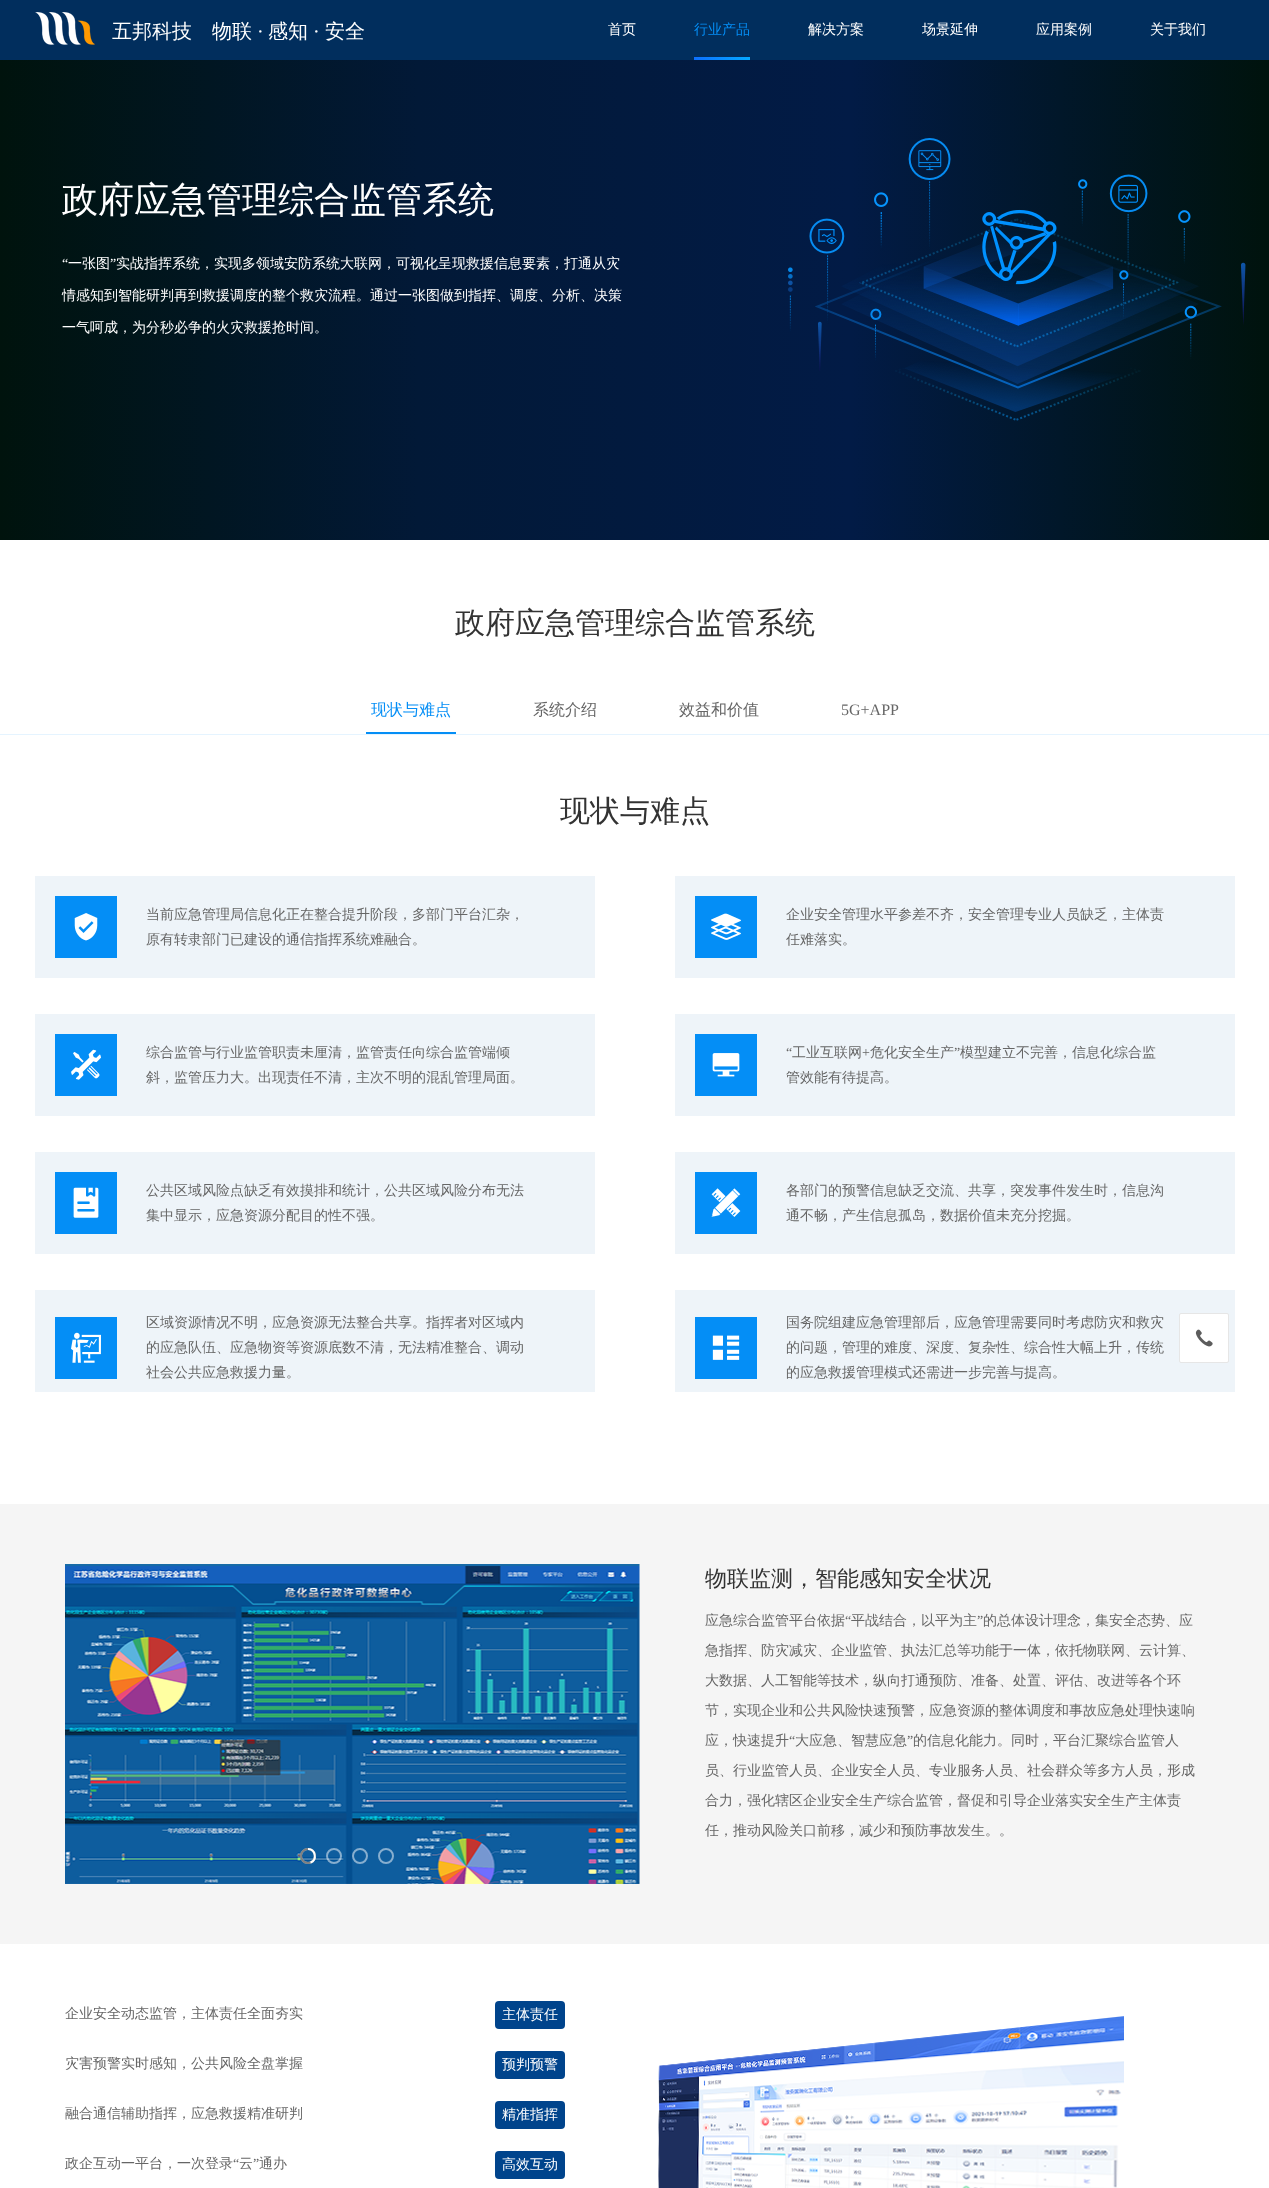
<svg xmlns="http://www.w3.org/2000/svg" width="1269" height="2188">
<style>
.a{font:500 20px WenQuanYi Zen Hei;fill:#fff}
.b{font:20px Liberation Serif;fill:#fff}
.c{font:500 14px WenQuanYi Zen Hei;fill:#fff}
.d{font:500 14px WenQuanYi Zen Hei;fill:#048ef6}
.e{font:500 36px WenQuanYi Zen Hei;fill:#fff}
.f{font:14px Liberation Serif;fill:#fff}
.g{font:500 30px WenQuanYi Zen Hei;fill:#333}
.h{font:500 16px WenQuanYi Zen Hei;fill:#048ef6}
.i{font:500 16px WenQuanYi Zen Hei;fill:#666}
.j{font:16px Liberation Serif;fill:#666}
.k{font:500 14px WenQuanYi Zen Hei;fill:#666}
.l{font:14px Liberation Serif;fill:#666}
.m{font:500 22px WenQuanYi Zen Hei;fill:#333}
</style>
<defs>
<linearGradient id="g1" gradientUnits="userSpaceOnUse" x1="694" y1="59" x2="750" y2="59"><stop offset="0" stop-color="#0d70fe"/><stop offset="1" stop-color="#05a9ff"/></linearGradient>
<linearGradient id="g2" gradientUnits="userSpaceOnUse" x1="0" y1="300" x2="1269" y2="300"><stop offset="0" stop-color="#00130d"/><stop offset="0.33" stop-color="#021937"/><stop offset="0.67" stop-color="#021b46"/><stop offset="1" stop-color="#00130d"/></linearGradient>
</defs>
<rect width="100%" height="100%" fill="#fff"/>
<path fill="#012e5d" d="M0 0h1269v60H0z"/>
<image href="1.png" x="35" y="12" width="60" height="33"/>
<path fill="url(#g1)" d="M694 57h56v3H694z"/>
<path fill="url(#g2)" d="M0 60h1269v480H0z"/>
<image href="2.png" x="788" y="138" width="458" height="233"/>
<image href="4.png" x="815" y="218" width="407" height="203"/>
<image href="3.png" x="982" y="209" width="75" height="76"/>
<path fill="#e5f4ff" d="M0 734h1269v1H0z"/>
<path fill="#048ef6" d="M366 732h90v2H366z"/>
<path fill="#eef4f9" d="M35 876h560v102H35z"/>
<path fill="#048ef6" d="M55 896h62v62H55z"/>
<image href="5.png" x="74" y="913" width="24" height="28"/>
<path fill="#eef4f9" d="M675 876h560v102H675z"/>
<path fill="#048ef6" d="M695 896h62v62H695z"/>
<image href="6.png" x="711" y="913" width="30" height="27"/>
<path fill="#eef4f9" d="M35 1014h560v102H35z"/>
<path fill="#048ef6" d="M55 1034h62v62H55z"/>
<image href="7.png" x="71" y="1049" width="30" height="31"/>
<path fill="#eef4f9" d="M675 1014h560v102H675z"/>
<path fill="#048ef6" d="M695 1034h62v62H695z"/>
<image href="8.png" x="712" y="1053" width="28" height="24"/>
<path fill="#eef4f9" d="M35 1152h560v102H35z"/>
<path fill="#048ef6" d="M55 1172h62v62H55z"/>
<image href="9.png" x="73" y="1187" width="26" height="31"/>
<path fill="#eef4f9" d="M675 1152h560v102H675z"/>
<path fill="#048ef6" d="M695 1172h62v62H695z"/>
<image href="10.png" x="711" y="1188" width="30" height="29"/>
<path fill="#eef4f9" d="M35 1290h560v102H35z"/>
<path fill="#048ef6" d="M55 1317h62v62H55z"/>
<image href="11.png" x="71" y="1332" width="30" height="31"/>
<path fill="#eef4f9" d="M675 1290h560v102H675z"/>
<path fill="#048ef6" d="M695 1317h62v62H695z"/>
<image href="12.png" x="712" y="1335" width="28" height="25"/>
<path fill="#f5f5f5" d="M0 1504h1269v440H0z"/>
<image href="13.png" x="65" y="1564" width="575" height="320"/>
<circle fill="none" stroke="#ffffff80" stroke-width="2" cx="308" cy="1856" r="7"/>
<circle fill="none" stroke="#808080" stroke-width="2" cx="308" cy="1856" r="7"/>
<path fill="none" stroke="#fff" stroke-width="2" d="M308 1849c7.5 0 9.5 11 2.5 13.5"/>
<circle fill="none" stroke="#ffffff80" stroke-width="2" cx="334" cy="1856" r="7"/>
<circle fill="none" stroke="#ffffff80" stroke-width="2" cx="360" cy="1856" r="7"/>
<circle fill="none" stroke="#87aecf" stroke-width="2" cx="386" cy="1856" r="7"/>
<rect fill="#00448c" x="495" y="2001" width="70" height="28" rx="4"/>
<rect fill="#00448c" x="495" y="2051" width="70" height="28" rx="4"/>
<rect fill="#00448c" x="495" y="2101" width="70" height="28" rx="4"/>
<rect fill="#00448c" x="495" y="2151" width="70" height="28" rx="4"/>
<image href="14.png" x="658" y="2016" width="466" height="172"/>
<rect fill="#fff" stroke="#e6e6e6" x="1179.5" y="1313.5" width="49" height="49" rx="1.5"/>
<image href="15.png" x="1195" y="1329" width="18" height="18"/>
<text class="a" x="112" y="38">五邦科技</text>
<text class="a" x="212" y="38">物联</text>
<text class="b" x="257" y="38">·</text>
<text class="a" x="268" y="38">感知</text>
<text class="b" x="313" y="38">·</text>
<text class="a" x="325" y="38">安全</text>
<text class="c" x="608" y="34">首页</text>
<text class="d" x="694" y="34">行业产品</text>
<text class="c" x="808" y="34">解决方案</text>
<text class="c" x="922" y="34">场景延伸</text>
<text class="c" x="1036" y="34">应用案例</text>
<text class="c" x="1150" y="34">关于我们</text>
<text class="e" x="62" y="212">政府应急管理综合监管系统</text>
<text class="f" x="62" y="268">“</text>
<text class="c" x="68" y="268">一张图</text>
<text class="f" x="110" y="268">”</text>
<text class="c" x="116" y="268">实战指挥系统，实现多领域安防系统大联网，可视化呈现救援信息要素，打通从灾</text>
<text class="c" x="62" y="300">情感知到智能研判再到救援调度的整个救灾流程。通过一张图做到指挥、调度、分析、决策</text>
<text class="c" x="62" y="332">一气呵成，为分秒必争的火灾救援抢时间。</text>
<text class="g" x="455" y="633">政府应急管理综合监管系统</text>
<text class="h" x="371" y="715">现状与难点</text>
<text class="i" x="533" y="715">系统介绍</text>
<text class="i" x="679" y="715">效益和价值</text>
<text class="j" x="841" y="715">5G+APP</text>
<text class="g" x="560" y="821">现状与难点</text>
<text class="k" x="146" y="919">当前应急管理局信息化正在整合提升阶段，多部门平台汇杂，</text>
<text class="k" x="146" y="944">原有转隶部门已建设的通信指挥系统难融合。</text>
<text class="k" x="786" y="919">企业安全管理水平参差不齐，安全管理专业人员缺乏，主体责</text>
<text class="k" x="786" y="944">任难落实。</text>
<text class="k" x="146" y="1057">综合监管与行业监管职责未厘清，监管责任向综合监管端倾</text>
<text class="k" x="146" y="1082">斜，监管压力大。出现责任不清，主次不明的混乱管理局面。</text>
<text class="l" x="786" y="1057">“</text>
<text class="k" x="792" y="1057">工业互联网</text>
<text class="l" x="862" y="1057">+</text>
<text class="k" x="870" y="1057">危化安全生产</text>
<text class="l" x="954" y="1057">”</text>
<text class="k" x="960" y="1057">模型建立不完善，信息化综合监</text>
<text class="k" x="786" y="1082">管效能有待提高。</text>
<text class="k" x="146" y="1195">公共区域风险点缺乏有效摸排和统计，公共区域风险分布无法</text>
<text class="k" x="146" y="1220">集中显示，应急资源分配目的性不强。</text>
<text class="k" x="786" y="1195">各部门的预警信息缺乏交流、共享，突发事件发生时，信息沟</text>
<text class="k" x="786" y="1220">通不畅，产生信息孤岛，数据价值未充分挖掘。</text>
<text class="k" x="146" y="1327">区域资源情况不明，应急资源无法整合共享。指挥者对区域内</text>
<text class="k" x="146" y="1352">的应急队伍、应急物资等资源底数不清，无法精准整合、调动</text>
<text class="k" x="146" y="1377">社会公共应急救援力量。</text>
<text class="k" x="786" y="1327">国务院组建应急管理部后，应急管理需要同时考虑防灾和救灾</text>
<text class="k" x="786" y="1352">的问题，管理的难度、深度、复杂性、综合性大幅上升，传统</text>
<text class="k" x="786" y="1377">的应急救援管理模式还需进一步完善与提高。</text>
<text class="m" x="705" y="1586">物联监测，智能感知安全状况</text>
<text class="k" x="705" y="1625">应急综合监管平台依据</text>
<text class="l" x="845" y="1625">“</text>
<text class="k" x="851" y="1625">平战结合，以平为主</text>
<text class="l" x="977" y="1625">”</text>
<text class="k" x="983" y="1625">的总体设计理念，集安全态势、应</text>
<text class="k" x="705" y="1655">急指挥、防灾减灾、企业监管、执法汇总等功能于一体，依托物联网、云计算、</text>
<text class="k" x="705" y="1685">大数据、人工智能等技术，纵向打通预防、准备、处置、评估、改进等各个环</text>
<text class="k" x="705" y="1715">节，实现企业和公共风险快速预警，应急资源的整体调度和事故应急处理快速响</text>
<text class="k" x="705" y="1745">应，快速提升</text>
<text class="l" x="789" y="1745">“</text>
<text class="k" x="795" y="1745">大应急、智慧应急</text>
<text class="l" x="907" y="1745">”</text>
<text class="k" x="913" y="1745">的信息化能力。同时，平台汇聚综合监管人</text>
<text class="k" x="705" y="1775">员、行业监管人员、企业安全人员、专业服务人员、社会群众等多方人员，形成</text>
<text class="k" x="705" y="1805">合力，强化辖区企业安全生产综合监管，督促和引导企业落实安全生产主体责</text>
<text class="k" x="705" y="1835">任，推动风险关口前移，减少和预防事故发生。。</text>
<text class="k" x="65" y="2018">企业安全动态监管，主体责任全面夯实</text>
<text class="c" x="502" y="2019">主体责任</text>
<text class="k" x="65" y="2068">灾害预警实时感知，公共风险全盘掌握</text>
<text class="c" x="502" y="2069">预判预警</text>
<text class="k" x="65" y="2118">融合通信辅助指挥，应急救援精准研判</text>
<text class="c" x="502" y="2119">精准指挥</text>
<text class="k" x="65" y="2168">政企互动一平台，一次登录</text>
<text class="l" x="233" y="2168">“</text>
<text class="k" x="239" y="2168">云</text>
<text class="l" x="253" y="2168">”</text>
<text class="k" x="259" y="2168">通办</text>
<text class="c" x="502" y="2169">高效互动</text>
</svg>
